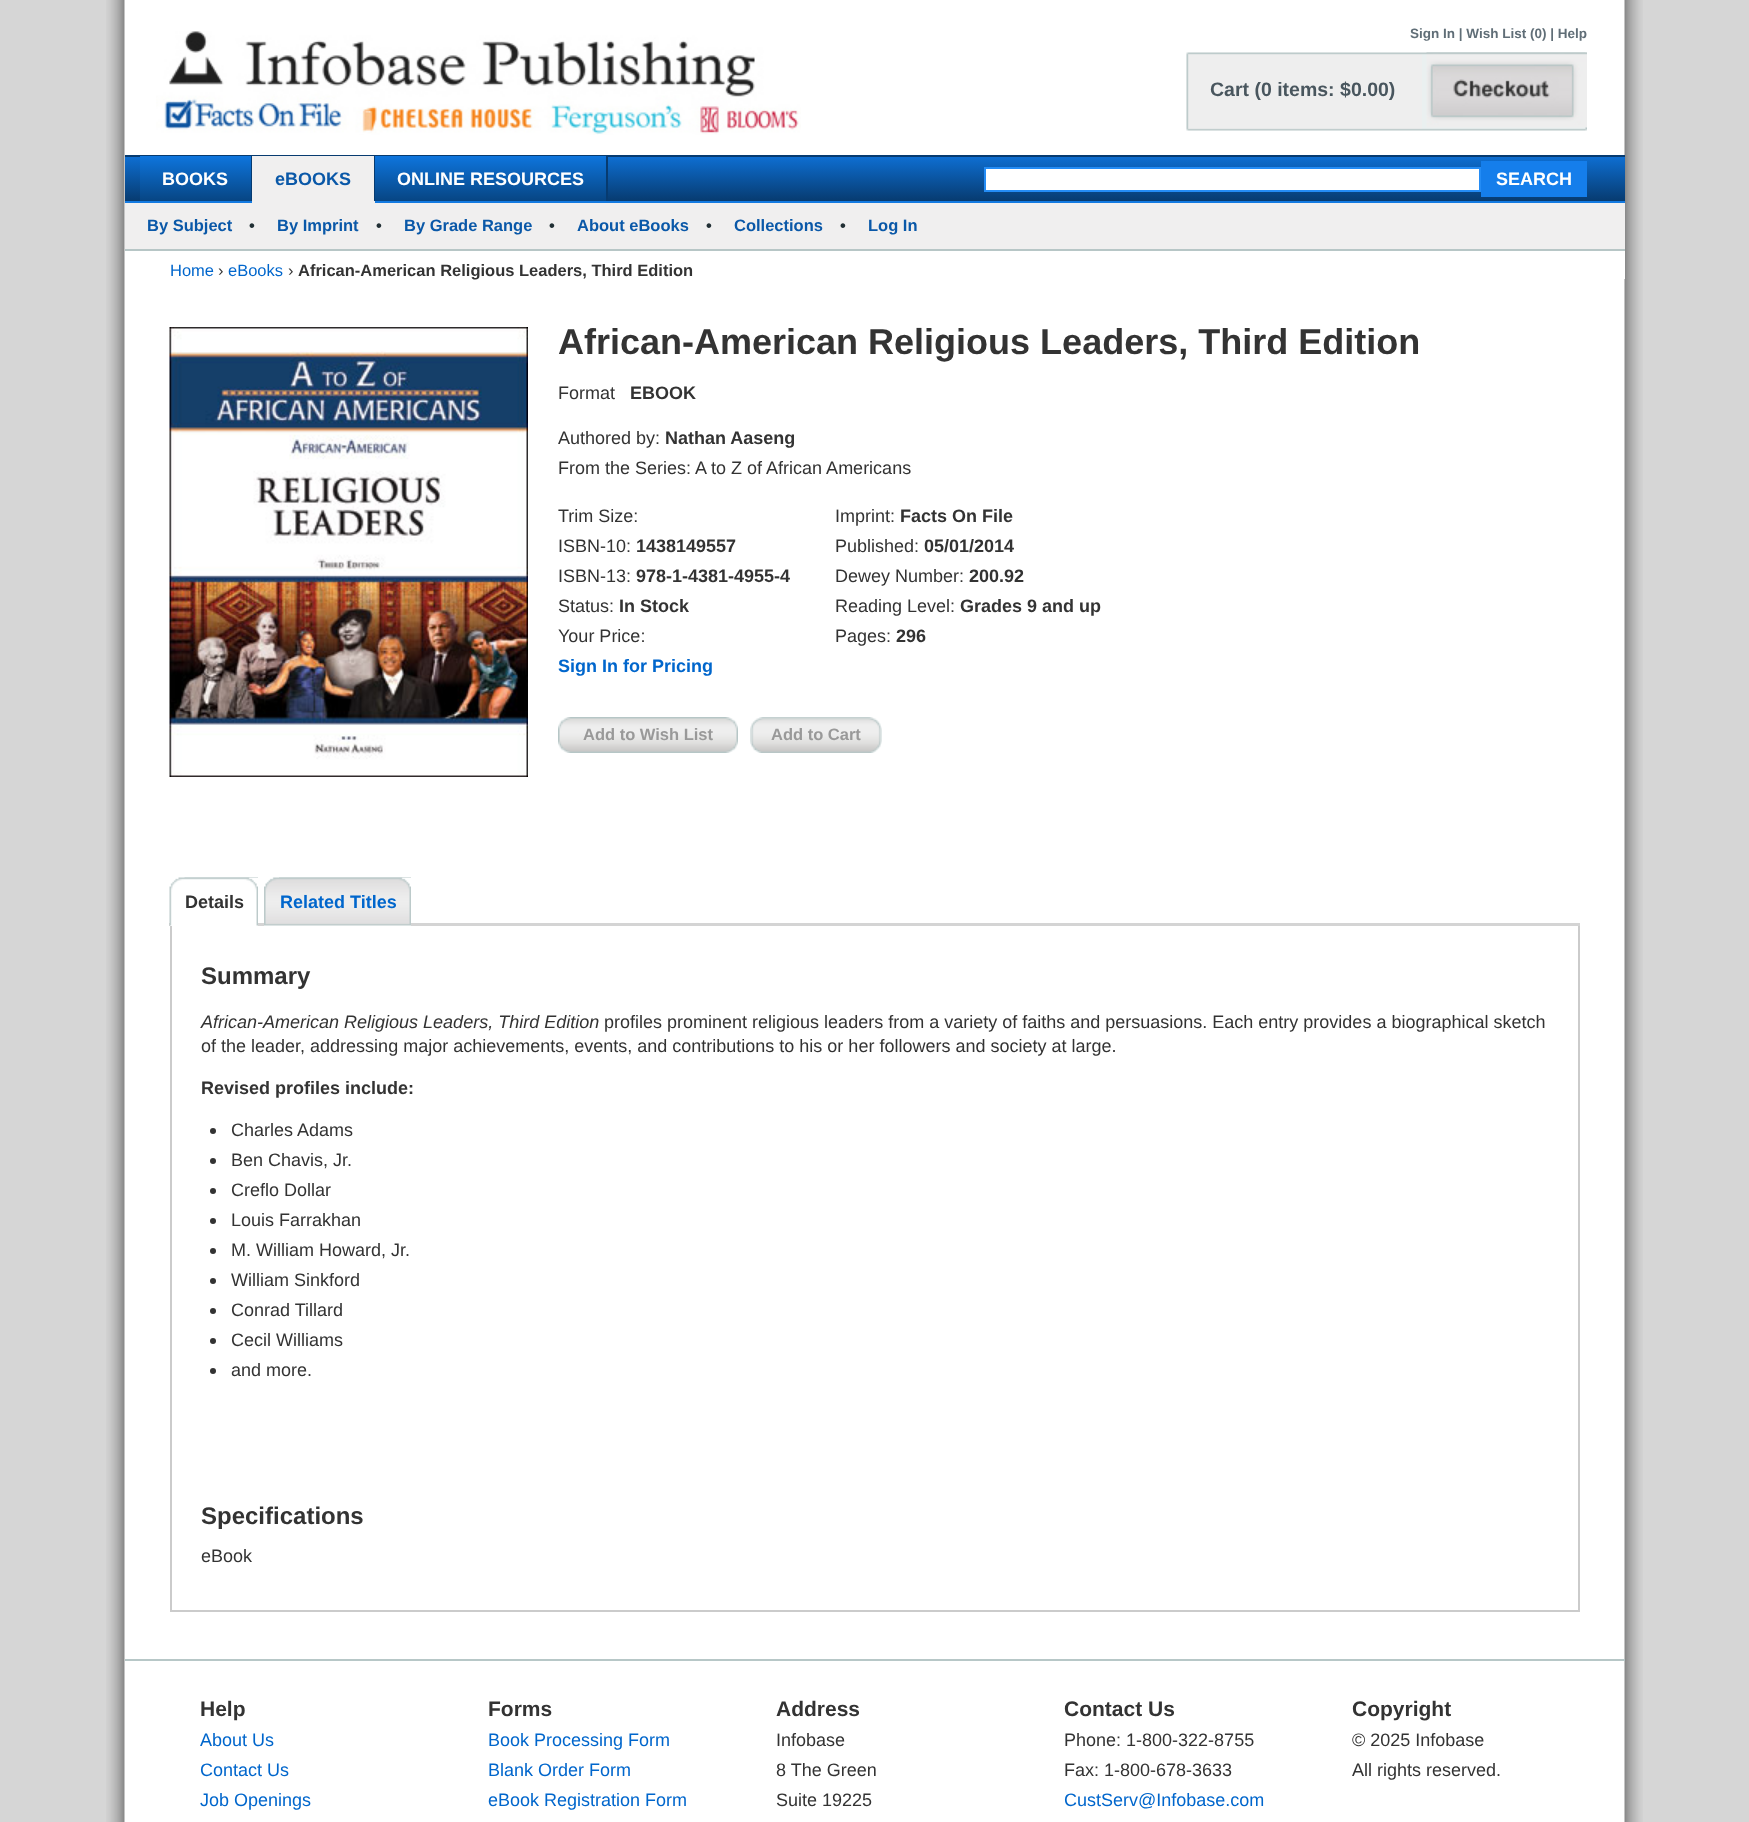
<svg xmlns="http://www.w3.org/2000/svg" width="1749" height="1822">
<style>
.a{font:bold 13.5px Liberation Sans;fill:#606e77}
.b{font:bold 19.5px Liberation Sans;fill:#49565e}
.c{font:bold 18px Liberation Sans;fill:#fff}
.d{font:bold 18px Liberation Sans;fill:#0a58a8}
.e{font:bold 16.5px Liberation Sans;fill:#0a58a8}
.f{font:bold 16.5px Liberation Sans;fill:#212f34}
.g{font:16.5px Liberation Sans;fill:#06c}
.h{font:16.5px Liberation Sans;fill:#333}
.i{font:bold 16.5px Liberation Sans;fill:#333}
.j{font:bold 36px Liberation Sans;fill:#333}
.k{font:18px Liberation Sans;fill:#333}
.l{font:bold 18px Liberation Sans;fill:#333}
.m{font:bold 18px Liberation Sans;fill:#06c}
.n{font:bold 16.5px Liberation Sans;fill:#999}
.o{font:bold 24px Liberation Sans;fill:#333}
.p{font:italic 18px Liberation Sans;fill:#333}
.q{font:bold 21px Liberation Sans;fill:#333}
.r{font:18px Liberation Sans;fill:#06c}
</style>
<defs>
<linearGradient id="g1" gradientUnits="userSpaceOnUse" x1="875" y1="156" x2="875" y2="201"><stop offset="0" stop-color="#0e6fd3"/><stop offset="1" stop-color="#073b70"/></linearGradient>
<linearGradient id="g2" gradientUnits="userSpaceOnUse" x1="196" y1="156" x2="196" y2="201"><stop offset="0" stop-color="#0e75dd"/><stop offset="1" stop-color="#074583"/></linearGradient>
<linearGradient id="g3" gradientUnits="userSpaceOnUse" x1="491" y1="156" x2="491" y2="201"><stop offset="0" stop-color="#0e75dd"/><stop offset="1" stop-color="#074583"/></linearGradient>
</defs>
<rect width="100%" height="100%" fill="#d6d6d6"/>
<image href="1.png" x="106" y="0" width="1537" height="1822"/>
<image href="2.png" x="156" y="31" width="645" height="104"/>
<image href="3.png" x="1186" y="52" width="236" height="79"/>
<image href="4.png" x="1422" y="52" width="165" height="79"/>
<image href="5.png" x="1426" y="52" width="161" height="76"/>
<path fill="url(#g1)" d="M125 157h1500v44H125z"/>
<path fill="#073b70" d="M125 155h1500v2H125z"/>
<path fill="#137ae1" d="M125 201h1500v2H125z"/>
<path fill="url(#g2)" d="M140 156h111v45H140z"/>
<path fill="#073b70" d="M251 156h1v45H251z"/>
<path fill="#f0efef" d="M252 156h123v47H252z"/>
<path fill="#073b70" d="M374 156h1v45H374z"/>
<path fill="url(#g3)" d="M375 156h231v45H375z"/>
<path fill="#073b70" d="M606 156h2v45H606z"/>
<path fill="#fff" stroke="#248cf5" stroke-width="2" d="M985 168h495v23H985z"/>
<path fill="#157eeb" d="M1481 161h106v36H1481z"/>
<path fill="#f0efef" d="M125 203h1500v46H125z"/>
<path fill="#b7c6c6" d="M125 249h1500v2H125z"/>
<path fill="#fff" d="M1624 251h1v28H1624z"/>
<image href="6.png" x="169" y="327" width="359" height="450"/>
<image href="7.png" x="558" y="717" width="180" height="36"/>
<image href="8.png" x="750" y="717" width="132" height="36"/>
<path fill="#d4d4d4" d="M169 923h1411v3H169z"/>
<path fill="#fff" d="M170 923h15v3H170z"/>
<image href="9.png" x="169" y="877" width="89" height="49"/>
<path fill="#fff" d="M185 878h73v48H185z"/>
<image href="10.png" x="184" y="877" width="74" height="49"/>
<path fill="#fff" d="M264 923h15v3H264z"/>
<image href="11.png" x="264" y="877" width="147" height="49"/>
<path fill="#fff" d="M279 878h132v48H279z"/>
<image href="12.png" x="279" y="877" width="132" height="49"/>
<path fill="#cbcbcb" d="M1578 926h2v685H1578z"/>
<path fill="#cbcbcb" d="M170 1610h1410v2H170z"/>
<path fill="#cbcbcb" d="M170 926h2v685H170z"/>
<circle fill="#333" cx="213" cy="1131" r="3"/>
<circle fill="#333" cx="213" cy="1161" r="3"/>
<circle fill="#333" cx="213" cy="1191" r="3"/>
<circle fill="#333" cx="213" cy="1221" r="3"/>
<circle fill="#333" cx="213" cy="1251" r="3"/>
<circle fill="#333" cx="213" cy="1281" r="3"/>
<circle fill="#333" cx="213" cy="1311" r="3"/>
<circle fill="#333" cx="213" cy="1341" r="3"/>
<circle fill="#333" cx="213" cy="1371" r="3"/>
<path fill="#b7c7c7" d="M125 1659h1500v2H125z"/>
<text class="a" x="1410" y="38">Sign In | Wish List (0) | Help</text>
<text class="b" x="1210" y="96">Cart (0 items: $0.00)</text>
<text class="c" x="162" y="185">BOOKS</text>
<text class="d" x="275" y="185">eBOOKS</text>
<text class="c" x="397" y="185">ONLINE RESOURCES</text>
<text class="c" x="1496" y="185">SEARCH</text>
<text class="e" x="147" y="231">By Subject</text>
<text class="f" x="249" y="231">•</text>
<text class="e" x="277" y="231">By Imprint</text>
<text class="f" x="376" y="231">•</text>
<text class="e" x="404" y="231">By Grade Range</text>
<text class="f" x="549" y="231">•</text>
<text class="e" x="577" y="231">About eBooks</text>
<text class="f" x="706" y="231">•</text>
<text class="e" x="734" y="231">Collections</text>
<text class="f" x="840" y="231">•</text>
<text class="e" x="868" y="231">Log In</text>
<text class="g" x="170" y="276">Home</text>
<text class="h" x="218" y="276">›</text>
<text class="g" x="228" y="276">eBooks</text>
<text class="h" x="288" y="276">›</text>
<text class="i" x="298" y="276">African-American Religious Leaders, Third Edition</text>
<text class="j" x="558" y="354">African-American Religious Leaders, Third Edition</text>
<text class="k" x="558" y="399">Format</text>
<text class="l" x="630" y="399">EBOOK</text>
<text class="k" x="558" y="444">Authored by:</text>
<text class="l" x="665" y="444">Nathan Aaseng</text>
<text class="k" x="558" y="474">From the Series: A to Z of African Americans</text>
<text class="k" x="558" y="522">Trim Size:</text>
<text class="k" x="558" y="552">ISBN-10:</text>
<text class="l" x="636" y="552">1438149557</text>
<text class="k" x="558" y="582">ISBN-13:</text>
<text class="l" x="636" y="582">978-1-4381-4955-4</text>
<text class="k" x="558" y="612">Status:</text>
<text class="l" x="619" y="612">In Stock</text>
<text class="k" x="558" y="642">Your Price:</text>
<text class="m" x="558" y="672">Sign In for Pricing</text>
<text class="k" x="835" y="522">Imprint:</text>
<text class="l" x="900" y="522">Facts On File</text>
<text class="k" x="835" y="552">Published:</text>
<text class="l" x="924" y="552">05/01/2014</text>
<text class="k" x="835" y="582">Dewey Number:</text>
<text class="l" x="969" y="582">200.92</text>
<text class="k" x="835" y="612">Reading Level:</text>
<text class="l" x="960" y="612">Grades 9 and up</text>
<text class="k" x="835" y="642">Pages:</text>
<text class="l" x="896" y="642">296</text>
<text class="n" x="583" y="740">Add to Wish List</text>
<text class="n" x="771" y="740">Add to Cart</text>
<text class="l" x="185" y="908">Details</text>
<text class="m" x="280" y="908">Related Titles</text>
<text class="o" x="201" y="984">Summary</text>
<text class="p" x="201" y="1028">African-American Religious Leaders, Third Edition</text>
<text class="k" x="604" y="1028">profiles prominent religious leaders from a variety of faiths and persuasions. Each entry provides a biographical sketch</text>
<text class="k" x="201" y="1052">of the leader, addressing major achievements, events, and contributions to his or her followers and society at large.</text>
<text class="l" x="201" y="1094">Revised profiles include:</text>
<text class="k" x="231" y="1136">Charles Adams</text>
<text class="k" x="231" y="1166">Ben Chavis, Jr.</text>
<text class="k" x="231" y="1196">Creflo Dollar</text>
<text class="k" x="231" y="1226">Louis Farrakhan</text>
<text class="k" x="231" y="1256">M. William Howard, Jr.</text>
<text class="k" x="231" y="1286">William Sinkford</text>
<text class="k" x="231" y="1316">Conrad Tillard</text>
<text class="k" x="231" y="1346">Cecil Williams</text>
<text class="k" x="231" y="1376">and more.</text>
<text class="o" x="201" y="1524">Specifications</text>
<text class="k" x="201" y="1562">eBook</text>
<text class="q" x="200" y="1716">Help</text>
<text class="r" x="200" y="1746">About Us</text>
<text class="r" x="200" y="1776">Contact Us</text>
<text class="r" x="200" y="1806">Job Openings</text>
<text class="q" x="488" y="1716">Forms</text>
<text class="r" x="488" y="1746">Book Processing Form</text>
<text class="r" x="488" y="1776">Blank Order Form</text>
<text class="r" x="488" y="1806">eBook Registration Form</text>
<text class="q" x="776" y="1716">Address</text>
<text class="k" x="776" y="1746">Infobase</text>
<text class="k" x="776" y="1776">8 The Green</text>
<text class="k" x="776" y="1806">Suite 19225</text>
<text class="q" x="1064" y="1716">Contact Us</text>
<text class="k" x="1064" y="1746">Phone: 1-800-322-8755</text>
<text class="k" x="1064" y="1776">Fax: 1-800-678-3633</text>
<text class="r" x="1064" y="1806">CustServ@Infobase.com</text>
<text class="q" x="1352" y="1716">Copyright</text>
<text class="k" x="1352" y="1746">© 2025 Infobase</text>
<text class="k" x="1352" y="1776">All rights reserved.</text>
</svg>
